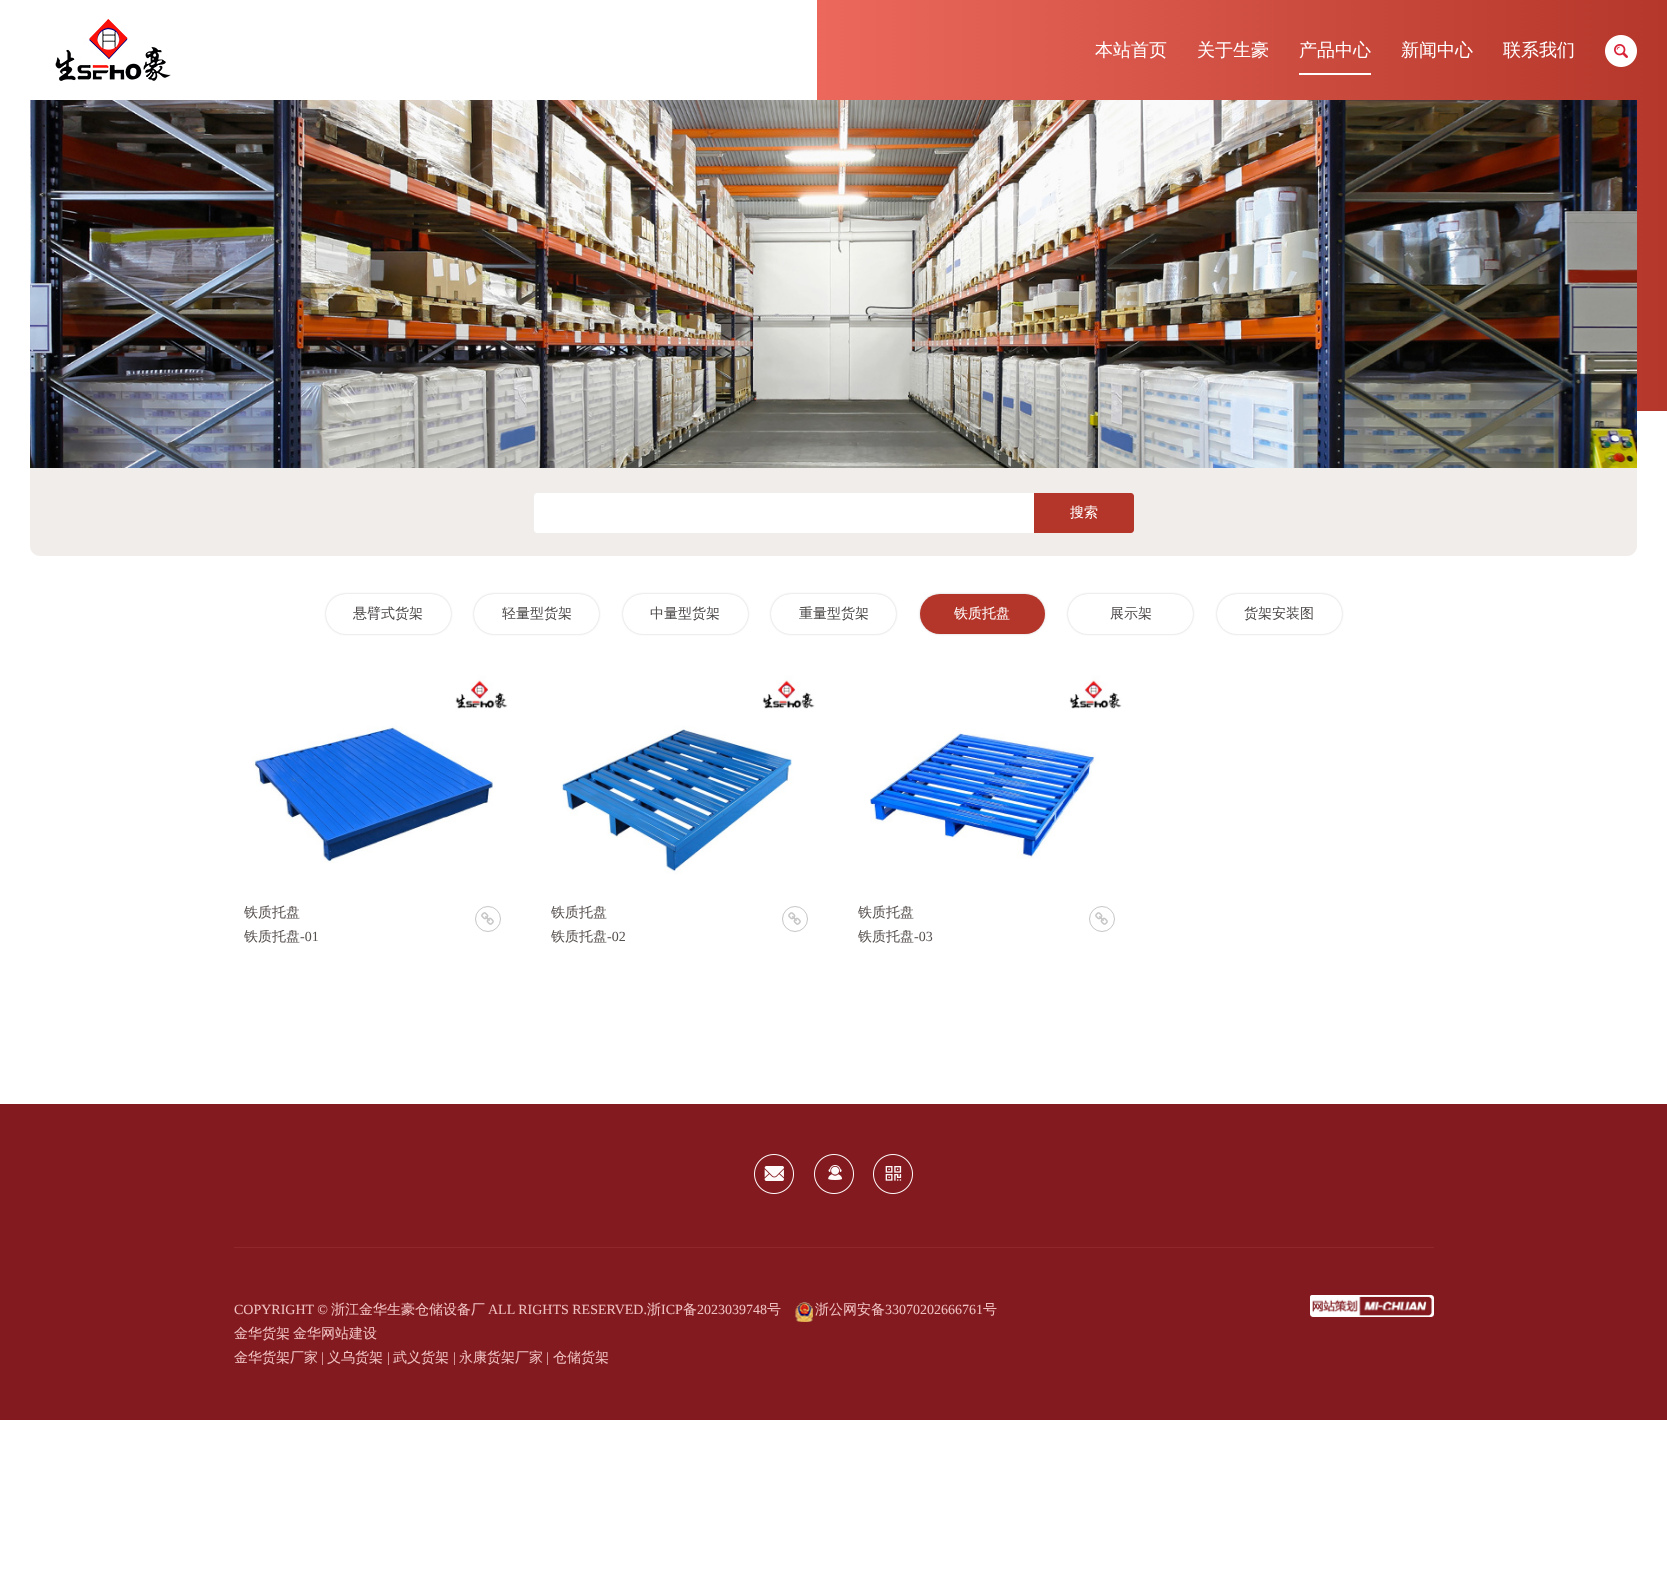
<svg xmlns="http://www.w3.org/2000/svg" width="1667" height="1590">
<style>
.a{font:500 18px WenQuanYi Zen Hei;fill:#fff}
.b{font:500 14px WenQuanYi Zen Hei;fill:#fff}
.c{font:500 14px WenQuanYi Zen Hei;fill:#4c4948}
.d{font:500 14px WenQuanYi Zen Hei;fill:#554f4d}
.e{font:14px Liberation Serif;fill:#554f4d}
.f{font:14px Liberation Serif;fill:#f1c2c2}
.g{font:500 14px WenQuanYi Zen Hei;fill:#f1c2c2}
</style>
<defs>
<linearGradient id="g1" gradientUnits="userSpaceOnUse" x1="817" y1="50" x2="1667" y2="50"><stop offset="0" stop-color="#ec685c"/><stop offset="1" stop-color="#b5362a"/></linearGradient>
<linearGradient id="g2" gradientUnits="userSpaceOnUse" x1="817" y1="206" x2="1667" y2="205"><stop offset="0" stop-color="#ec685c"/><stop offset="1" stop-color="#b5362a"/></linearGradient>
<clipPath id="clip1"><path d="M244 930h221v14H244z"/></clipPath>
<clipPath id="clip2"><path d="M551 930h221v14H551z"/></clipPath>
<clipPath id="clip3"><path d="M858 930h221v14H858z"/></clipPath>
</defs>
<rect width="100%" height="100%" fill="#fff"/>
<image href="1.png" x="55" y="19" width="116" height="62"/>
<path fill="url(#g1)" d="M817 0h850v100H817z"/>
<path fill="#fff" d="M1299 73h72v2H1299z"/>
<image href="2.png" x="1605" y="35" width="32" height="32"/>
<image href="3.png" x="30" y="100" width="1607" height="368"/>
<path fill="url(#g2)" d="M1637 100h30v311H1637z"/>
<path fill="#f1edeb" d="M30 468h1607v78c0 5.5-4.5 10-10 10h-1587c-5.5 0-10-4.5-10-10z"/>
<path fill="#fff" d="M537 493h497v40h-497c-1.5 0-3-1.5-3-3v-34c0-1.5 1.5-3 3-3z"/>
<path fill="#b43529" d="M1034 493h97c1.5 0 3 1.5 3 3v34c0 1.5-1.5 3-3 3h-97z"/>
<rect fill="#00000033" filter="blur(1px)" x="326" y="594" width="125" height="40" rx="20"/>
<rect fill="#fff" x="326" y="594" width="125" height="40" rx="20"/>
<rect fill="#00000033" filter="blur(1px)" x="474" y="594" width="125" height="40" rx="20"/>
<rect fill="#fff" x="474" y="594" width="125" height="40" rx="20"/>
<rect fill="#00000033" filter="blur(1px)" x="623" y="594" width="125" height="40" rx="20"/>
<rect fill="#fff" x="623" y="594" width="125" height="40" rx="20"/>
<rect fill="#00000033" filter="blur(1px)" x="771" y="594" width="125" height="40" rx="20"/>
<rect fill="#fff" x="771" y="594" width="125" height="40" rx="20"/>
<rect fill="#00000033" filter="blur(1px)" x="920" y="594" width="125" height="40" rx="20"/>
<rect fill="#b43529" x="920" y="594" width="125" height="40" rx="20"/>
<rect fill="#00000033" filter="blur(1px)" x="1068" y="594" width="125" height="40" rx="20"/>
<rect fill="#fff" x="1068" y="594" width="125" height="40" rx="20"/>
<rect fill="#00000033" filter="blur(1px)" x="1217" y="594" width="125" height="40" rx="20"/>
<rect fill="#fff" x="1217" y="594" width="125" height="40" rx="20"/>
<image href="4.png" x="252" y="675" width="256" height="188"/>
<circle fill="none" stroke="#c6c6c6" cx="488" cy="919" r="12.5"/>
<image href="5.png" x="481" y="912" width="13" height="13"/>
<image href="6.png" x="560" y="675" width="255" height="199"/>
<circle fill="none" stroke="#c6c6c6" cx="795" cy="919" r="12.5"/>
<image href="5.png" x="788" y="912" width="13" height="13"/>
<image href="7.png" x="870" y="675" width="252" height="184"/>
<circle fill="none" stroke="#c6c6c6" cx="1102" cy="919" r="12.5"/>
<image href="5.png" x="1095" y="912" width="13" height="13"/>
<path fill="#821a1f" d="M0 1104h1667v316H0z"/>
<image href="8.png" x="754" y="1154" width="40" height="40"/>
<image href="9.png" x="814" y="1154" width="40" height="40"/>
<image href="10.png" x="873" y="1154" width="40" height="40"/>
<path fill="#8f272d" d="M234 1247h1200v1H234z"/>
<image href="11.png" x="795" y="1302" width="18" height="20"/>
<image href="12.png" x="1310" y="1295" width="124" height="22"/>
<text class="a" x="1095" y="56">本站首页</text>
<text class="a" x="1197" y="56">关于生豪</text>
<text class="a" x="1299" y="56">产品中心</text>
<text class="a" x="1401" y="56">新闻中心</text>
<text class="a" x="1503" y="56">联系我们</text>
<text class="b" x="1070" y="517">搜索</text>
<text class="c" x="353" y="618">悬臂式货架</text>
<text class="c" x="502" y="618">轻量型货架</text>
<text class="c" x="650" y="618">中量型货架</text>
<text class="c" x="799" y="618">重量型货架</text>
<text class="b" x="954" y="618">铁质托盘</text>
<text class="c" x="1110" y="618">展示架</text>
<text class="c" x="1244" y="618">货架安装图</text>
<text class="d" x="244" y="917">铁质托盘</text>
<g clip-path="url(#clip1)">
<text class="d" x="244" y="941">铁质托盘</text>
</g>
<text class="e" x="300" y="941">-01</text>
<text class="d" x="551" y="917">铁质托盘</text>
<g clip-path="url(#clip2)">
<text class="d" x="551" y="941">铁质托盘</text>
</g>
<text class="e" x="607" y="941">-02</text>
<text class="d" x="858" y="917">铁质托盘</text>
<g clip-path="url(#clip3)">
<text class="d" x="858" y="941">铁质托盘</text>
</g>
<text class="e" x="914" y="941">-03</text>
<text class="f" x="234" y="1314">COPYRIGHT ©</text>
<text class="g" x="331" y="1314">浙江金华生豪仓储设备厂</text>
<text class="f" x="488" y="1314">ALL RIGHTS RESERVED.</text>
<text class="g" x="647" y="1314">浙</text>
<text class="f" x="661" y="1314">ICP</text>
<text class="g" x="683" y="1314">备</text>
<text class="f" x="697" y="1314">2023039748</text>
<text class="g" x="767" y="1314">号</text>
<text class="g" x="815" y="1314">浙公网安备</text>
<text class="f" x="885" y="1314">33070202666761</text>
<text class="g" x="983" y="1314">号</text>
<text class="g" x="234" y="1338">金华货架</text>
<text class="g" x="293" y="1338">金华网站建设</text>
<text class="g" x="234" y="1362">金华货架厂家</text>
<text class="f" x="321" y="1362">|</text>
<text class="g" x="327" y="1362">义乌货架</text>
<text class="f" x="387" y="1362">|</text>
<text class="g" x="393" y="1362">武义货架</text>
<text class="f" x="453" y="1362">|</text>
<text class="g" x="459" y="1362">永康货架厂家</text>
<text class="f" x="546" y="1362">|</text>
<text class="g" x="553" y="1362">仓储货架</text>
</svg>
